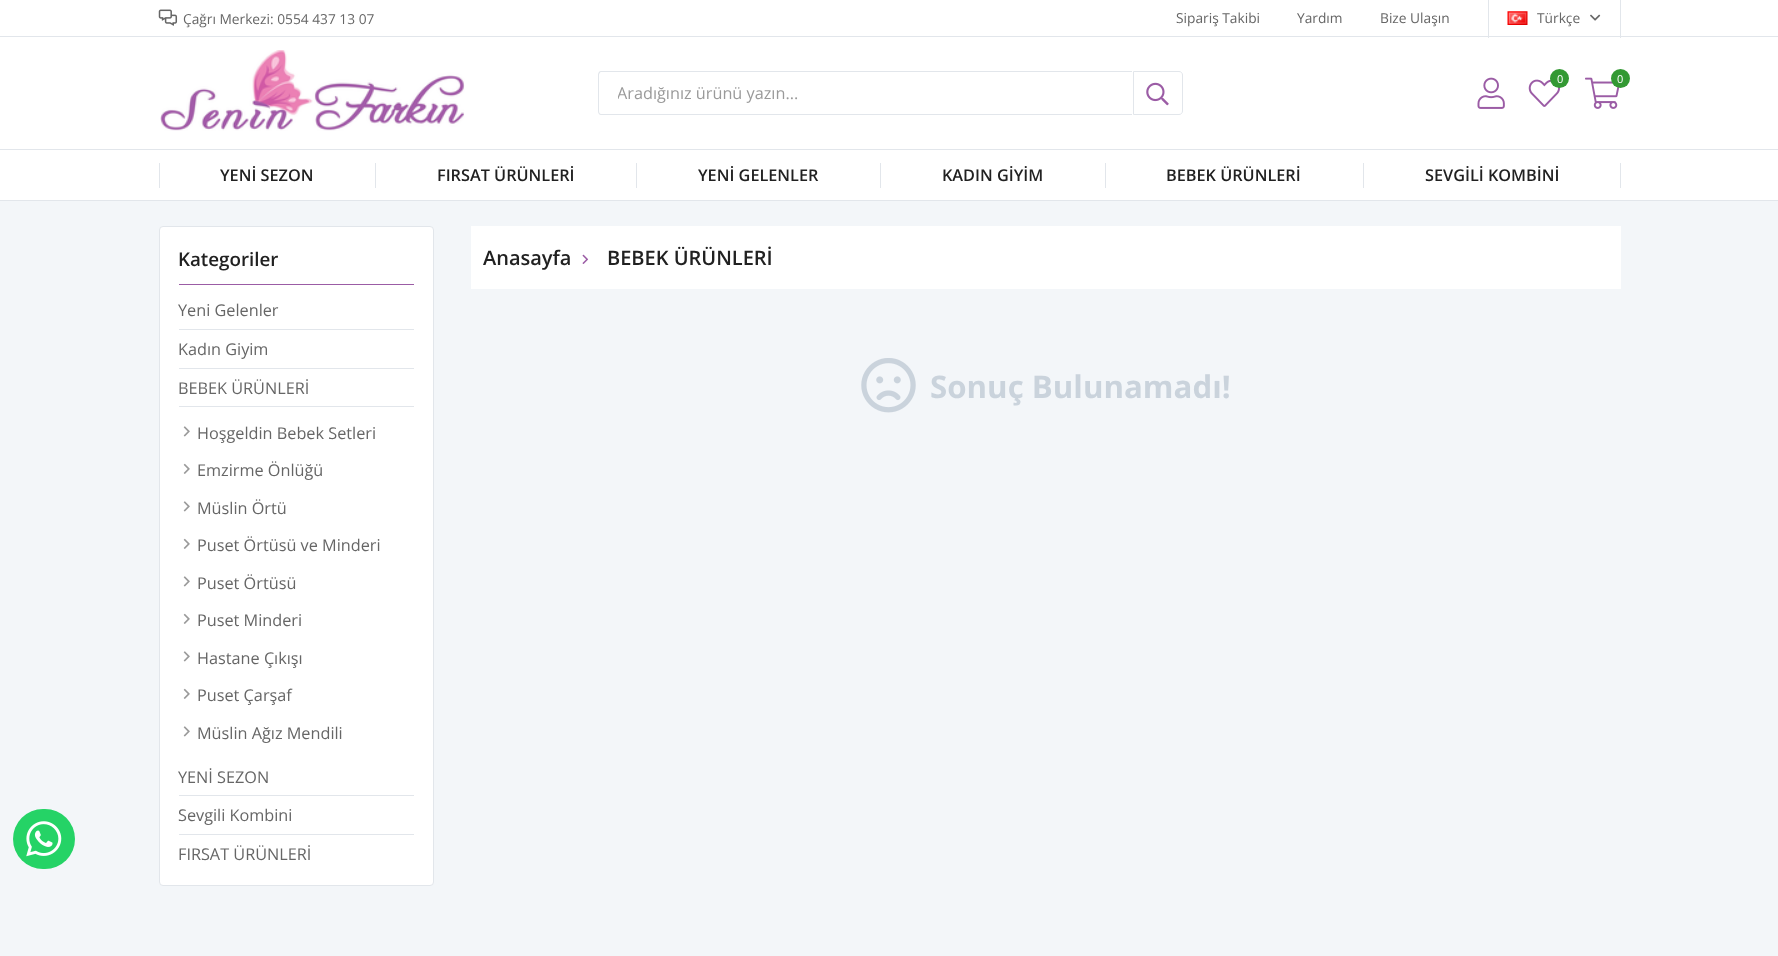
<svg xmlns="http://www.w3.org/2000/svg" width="1778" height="956">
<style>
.a{font:13.75px Open Sans;fill:#666}
.b{font:11px Open Sans;fill:#fff}
.c{font:16.25px Open Sans;fill:#9a9a9a}
.d{font:600 16.25px Open Sans;fill:#212121}
.e{font:600 18.75px Open Sans;fill:#212121}
.f{font:16.25px Open Sans;fill:#666}
.g{font:600 20px Open Sans;fill:#212121}
.h{font:bold 31.25px Open Sans;fill:#cad3dc}
</style>
<defs>
<clipPath id="clip1"><path d="M618 83h496v22H618z"/></clipPath>
</defs>
<rect width="100%" height="100%" fill="#f3f6f9"/>
<path fill="#fff" d="M0 0h1778v200H0z"/>
<path fill="#e2e6eb" d="M0 36h1778v1H0z"/>
<image href="1.png" x="158" y="9" width="20" height="17"/>
<path fill="#e2e6eb" d="M1620 0h1v38H1620z"/>
<path fill="#e2e6eb" d="M1488 0h1v38H1488z"/>
<image href="2.png" x="1507" y="11" width="21" height="14"/>
<image href="3.png" x="1590" y="14" width="11" height="7"/>
<path fill="#e2e6eb" d="M0 149h1778v1H0z"/>
<image href="4.png" x="160" y="50" width="305" height="81"/>
<image href="5.png" x="1477" y="77" width="28" height="32"/>
<image href="6.png" x="1528" y="79" width="32" height="28"/>
<circle fill="#393" cx="1559.5" cy="78.5" r="9.5"/>
<image href="7.png" x="1585" y="77" width="35" height="32"/>
<circle fill="#393" cx="1620.5" cy="78.5" r="9.5"/>
<path fill="#e2e6eb" fill-rule="evenodd" d="M601 71h531v44h-531c-2 0-3-2-3-4v-36c0-2 1-4 3-4zm0 1h531v42h-531c-1 0-2-1-2-3v-36c0-1 1-3 2-3z"/>
<path fill="none" stroke="#e2e6eb" d="M1133.5 71.5h45.5c2 0 3.5 1.5 3.5 3.5v36c0 2-1.5 3.5-3.5 3.5h-45.5z"/>
<image href="8.png" x="1146" y="82" width="23" height="24"/>
<path fill="#e2e6eb" d="M0 200h1778v1H0z"/>
<path fill="#e2e6eb" d="M159 163h1v25H159z"/>
<path fill="#e2e6eb" d="M375 163h1v25H375z"/>
<path fill="#e2e6eb" d="M636 163h1v25H636z"/>
<path fill="#e2e6eb" d="M880 163h1v25H880z"/>
<path fill="#e2e6eb" d="M1105 163h1v25H1105z"/>
<path fill="#e2e6eb" d="M1363 163h1v25H1363z"/>
<path fill="#e2e6eb" d="M1620 163h1v25H1620z"/>
<rect fill="#25d366" x="13" y="809" width="62" height="60" rx="30"/>
<image href="9.png" x="26" y="821" width="36" height="36"/>
<rect fill="#fff" stroke="#e2e6eb" x="159.5" y="226.5" width="274" height="659" rx="3.5"/>
<path fill="#9b5ca5" d="M179 284h235v1H179z"/>
<path fill="#e2e6eb" d="M179 329h235v1H179z"/>
<path fill="#e2e6eb" d="M179 368h235v1H179z"/>
<path fill="#e2e6eb" d="M179 406h235v1H179z"/>
<image href="10.png" x="183" y="426" width="7" height="11"/>
<image href="11.png" x="183" y="463" width="7" height="11"/>
<image href="10.png" x="183" y="501" width="7" height="11"/>
<image href="11.png" x="183" y="538" width="7" height="11"/>
<image href="10.png" x="183" y="576" width="7" height="11"/>
<image href="11.png" x="183" y="613" width="7" height="11"/>
<image href="10.png" x="183" y="651" width="7" height="11"/>
<image href="11.png" x="183" y="688" width="7" height="11"/>
<image href="10.png" x="183" y="726" width="7" height="11"/>
<path fill="#e2e6eb" d="M179 795h235v1H179z"/>
<path fill="#e2e6eb" d="M179 834h235v1H179z"/>
<path fill="#fff" d="M471 226h1150v63H471z"/>
<image href="12.png" x="582" y="254" width="7" height="10"/>
<image href="13.png" x="861" y="358" width="55" height="55"/>
<text class="a" x="183" y="24">Çağrı Merkezi: 0554 437 13 07</text>
<text class="a" x="1176" y="23">Sipariş Takibi</text>
<text class="a" x="1297" y="23">Yardım</text>
<text class="a" x="1380" y="23">Bize Ulaşın</text>
<text class="a" x="1537" y="23">Türkçe</text>
<text class="b" x="1557" y="83">0</text>
<text class="b" x="1617" y="83">0</text>
<g clip-path="url(#clip1)">
<text class="c" x="617" y="99">Aradığınız ürünü yazın...</text>
</g>
<text class="d" x="220" y="181">YENİ SEZON</text>
<text class="d" x="437" y="181">FIRSAT ÜRÜNLERİ</text>
<text class="d" x="698" y="181">YENİ GELENLER</text>
<text class="d" x="942" y="181">KADIN GİYİM</text>
<text class="d" x="1166" y="181">BEBEK ÜRÜNLERİ</text>
<text class="d" x="1425" y="181">SEVGİLİ KOMBİNİ</text>
<text class="e" x="178" y="266">Kategoriler</text>
<text class="f" x="178" y="316">Yeni Gelenler</text>
<text class="f" x="178" y="355">Kadın Giyim</text>
<text class="f" x="178" y="394">BEBEK ÜRÜNLERİ</text>
<text class="f" x="197" y="439">Hoşgeldin Bebek Setleri</text>
<text class="f" x="197" y="476">Emzirme Önlüğü</text>
<text class="f" x="197" y="514">Müslin Örtü</text>
<text class="f" x="197" y="551">Puset Örtüsü ve Minderi</text>
<text class="f" x="197" y="589">Puset Örtüsü</text>
<text class="f" x="197" y="626">Puset Minderi</text>
<text class="f" x="197" y="664">Hastane Çıkışı</text>
<text class="f" x="197" y="701">Puset Çarşaf</text>
<text class="f" x="197" y="739">Müslin Ağız Mendili</text>
<text class="f" x="178" y="783">YENİ SEZON</text>
<text class="f" x="178" y="821">Sevgili Kombini</text>
<text class="f" x="178" y="860">FIRSAT ÜRÜNLERİ</text>
<text class="g" x="483" y="265">Anasayfa</text>
<text class="g" x="607" y="265">BEBEK ÜRÜNLERİ</text>
<text class="h" x="930" y="398">Sonuç Bulunamadı!</text>
</svg>
